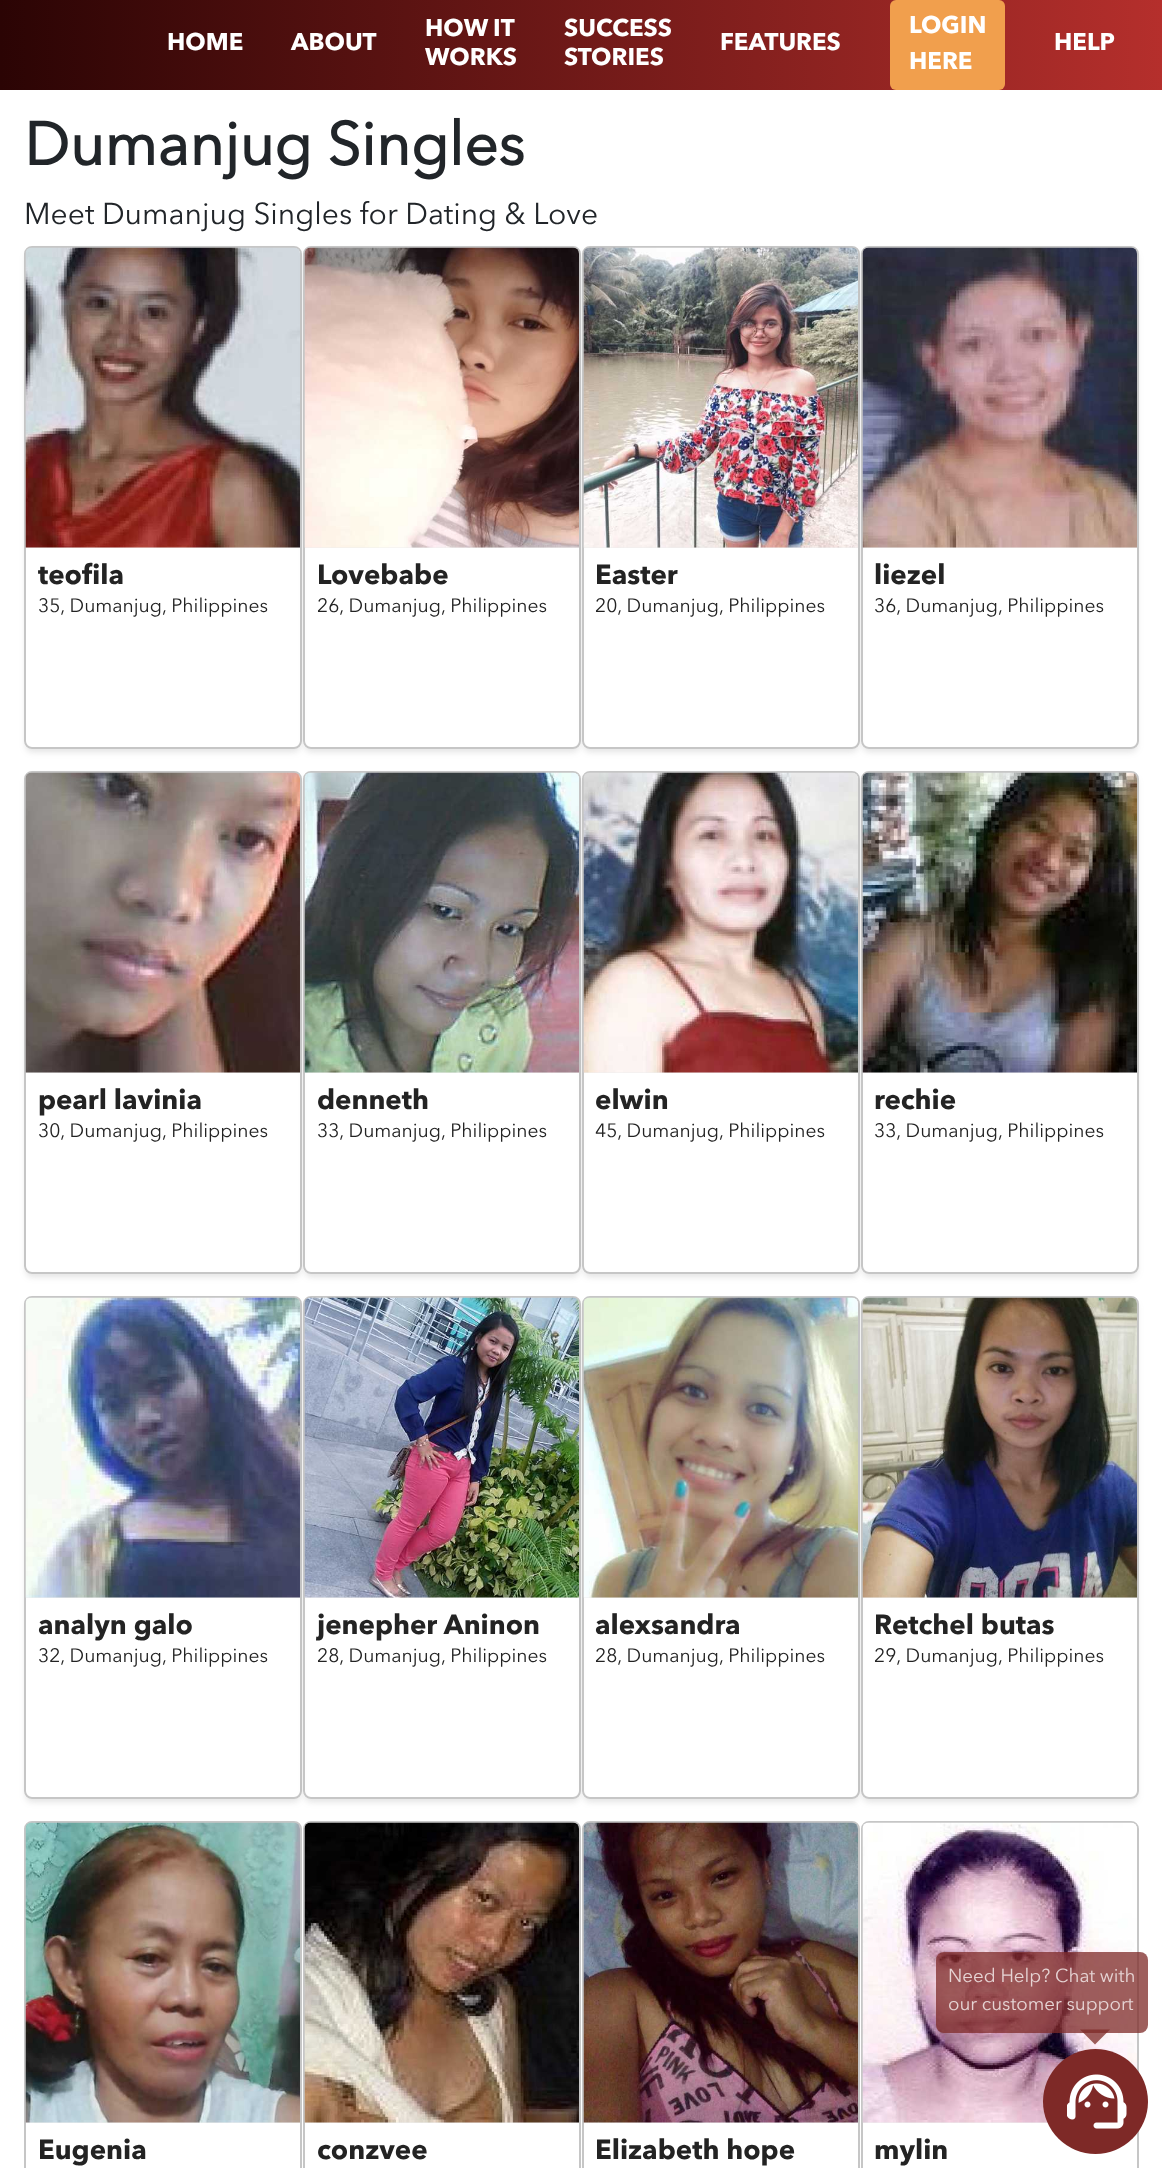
<svg xmlns="http://www.w3.org/2000/svg" width="1162" height="2168">
<style>
.a{font:bold 24px 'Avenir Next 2';fill:#fff}
.b{font:bold 60px Avenir Next;fill:#212529}
.c{font:30px Avenir Next;fill:#212529}
.d{font:bold 27.5px 'Avenir Next 2';fill:#232323}
.e{font:19.25px Avenir Next;fill:#232323}
.f{font:18.75px Avenir Next;fill:#e6d4d4}
</style>
<defs>
<linearGradient id="g1" gradientUnits="userSpaceOnUse" x1="0" y1="45" x2="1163" y2="45"><stop offset="0" stop-color="#2b0404"/><stop offset="1" stop-color="#b52f2c"/></linearGradient>
<clipPath id="clip1"><path d="M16 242h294v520h-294zm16 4h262c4.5 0 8 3.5 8 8v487c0 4.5-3.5 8-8 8h-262c-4.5 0-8-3.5-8-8v-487c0-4.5 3.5-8 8-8z" clip-rule="evenodd"/></clipPath>
<clipPath id="clip2"><path d="M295 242h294v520h-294zm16 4h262c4.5 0 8 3.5 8 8v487c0 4.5-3.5 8-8 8h-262c-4.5 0-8-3.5-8-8v-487c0-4.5 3.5-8 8-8z" clip-rule="evenodd"/></clipPath>
<clipPath id="clip3"><path d="M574 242h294v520h-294zm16 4h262c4.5 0 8 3.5 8 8v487c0 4.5-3.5 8-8 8h-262c-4.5 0-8-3.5-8-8v-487c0-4.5 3.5-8 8-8z" clip-rule="evenodd"/></clipPath>
<clipPath id="clip4"><path d="M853 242h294v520h-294zm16 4h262c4.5 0 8 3.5 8 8v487c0 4.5-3.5 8-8 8h-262c-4.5 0-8-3.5-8-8v-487c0-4.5 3.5-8 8-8z" clip-rule="evenodd"/></clipPath>
<clipPath id="clip5"><path d="M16 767h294v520h-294zm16 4h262c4.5 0 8 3.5 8 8v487c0 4.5-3.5 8-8 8h-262c-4.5 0-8-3.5-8-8v-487c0-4.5 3.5-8 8-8z" clip-rule="evenodd"/></clipPath>
<clipPath id="clip6"><path d="M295 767h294v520h-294zm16 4h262c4.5 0 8 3.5 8 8v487c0 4.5-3.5 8-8 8h-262c-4.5 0-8-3.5-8-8v-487c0-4.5 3.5-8 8-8z" clip-rule="evenodd"/></clipPath>
<clipPath id="clip7"><path d="M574 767h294v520h-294zm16 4h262c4.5 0 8 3.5 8 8v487c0 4.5-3.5 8-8 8h-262c-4.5 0-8-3.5-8-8v-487c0-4.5 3.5-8 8-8z" clip-rule="evenodd"/></clipPath>
<clipPath id="clip8"><path d="M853 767h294v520h-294zm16 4h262c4.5 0 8 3.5 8 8v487c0 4.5-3.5 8-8 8h-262c-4.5 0-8-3.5-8-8v-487c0-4.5 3.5-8 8-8z" clip-rule="evenodd"/></clipPath>
<clipPath id="clip9"><path d="M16 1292h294v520h-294zm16 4h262c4.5 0 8 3.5 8 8v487c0 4.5-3.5 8-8 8h-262c-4.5 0-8-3.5-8-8v-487c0-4.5 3.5-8 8-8z" clip-rule="evenodd"/></clipPath>
<clipPath id="clip10"><path d="M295 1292h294v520h-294zm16 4h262c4.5 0 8 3.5 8 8v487c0 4.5-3.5 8-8 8h-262c-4.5 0-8-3.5-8-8v-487c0-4.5 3.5-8 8-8z" clip-rule="evenodd"/></clipPath>
<clipPath id="clip11"><path d="M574 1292h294v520h-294zm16 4h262c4.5 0 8 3.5 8 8v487c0 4.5-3.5 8-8 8h-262c-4.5 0-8-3.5-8-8v-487c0-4.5 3.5-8 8-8z" clip-rule="evenodd"/></clipPath>
<clipPath id="clip12"><path d="M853 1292h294v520h-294zm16 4h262c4.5 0 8 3.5 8 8v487c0 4.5-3.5 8-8 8h-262c-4.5 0-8-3.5-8-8v-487c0-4.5 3.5-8 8-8z" clip-rule="evenodd"/></clipPath>
</defs>
<rect width="100%" height="100%" fill="#fff"/>
<path fill="url(#g1)" d="M0 0h1162v90H0z"/>
<rect fill="#f19f4d" x="890" width="115" height="90" rx="6"/>
<g clip-path="url(#clip1)">
<rect fill="#5a5a5a2b" filter="blur(3px)" x="26" y="252" width="274" height="500" rx="6"/>
</g>
<rect fill="none" stroke="#c6c6c6" stroke-width="2" x="25" y="247" width="276" height="501" rx="7"/>
<path fill="#eee" d="M32 248h262c3.5 0 6 2.5 6 6v294h-274v-294c0-3.5 2.5-6 6-6z"/>
<image href="1.png" x="25" y="247" width="275" height="301"/>
<g clip-path="url(#clip2)">
<rect fill="#5a5a5a2b" filter="blur(3px)" x="305" y="252" width="274" height="500" rx="6"/>
</g>
<rect fill="none" stroke="#c6c6c6" stroke-width="2" x="304" y="247" width="276" height="501" rx="7"/>
<path fill="#eee" d="M311 248h262c3.5 0 6 2.5 6 6v294h-274v-294c0-3.5 2.5-6 6-6z"/>
<image href="2.png" x="304" y="247" width="275" height="301"/>
<g clip-path="url(#clip3)">
<rect fill="#5a5a5a2b" filter="blur(3px)" x="584" y="252" width="274" height="500" rx="6"/>
</g>
<rect fill="none" stroke="#c6c6c6" stroke-width="2" x="583" y="247" width="276" height="501" rx="7"/>
<path fill="#eee" d="M590 248h262c3.5 0 6 2.5 6 6v294h-274v-294c0-3.5 2.5-6 6-6z"/>
<image href="3.png" x="583" y="247" width="275" height="301"/>
<g clip-path="url(#clip4)">
<rect fill="#5a5a5a2b" filter="blur(3px)" x="863" y="252" width="274" height="500" rx="6"/>
</g>
<rect fill="none" stroke="#c6c6c6" stroke-width="2" x="862" y="247" width="276" height="501" rx="7"/>
<path fill="#eee" d="M869 248h262c3.5 0 6 2.5 6 6v294h-274v-294c0-3.5 2.5-6 6-6z"/>
<image href="4.png" x="862" y="247" width="275" height="301"/>
<g clip-path="url(#clip5)">
<rect fill="#5a5a5a2b" filter="blur(3px)" x="26" y="777" width="274" height="500" rx="6"/>
</g>
<rect fill="none" stroke="#c6c6c6" stroke-width="2" x="25" y="772" width="276" height="501" rx="7"/>
<path fill="#eee" d="M32 773h262c3.5 0 6 2.5 6 6v294h-274v-294c0-3.5 2.5-6 6-6z"/>
<image href="5.png" x="25" y="772" width="275" height="301"/>
<g clip-path="url(#clip6)">
<rect fill="#5a5a5a2b" filter="blur(3px)" x="305" y="777" width="274" height="500" rx="6"/>
</g>
<rect fill="none" stroke="#c6c6c6" stroke-width="2" x="304" y="772" width="276" height="501" rx="7"/>
<path fill="#eee" d="M311 773h262c3.5 0 6 2.5 6 6v294h-274v-294c0-3.5 2.5-6 6-6z"/>
<image href="6.png" x="304" y="772" width="275" height="301"/>
<g clip-path="url(#clip7)">
<rect fill="#5a5a5a2b" filter="blur(3px)" x="584" y="777" width="274" height="500" rx="6"/>
</g>
<rect fill="none" stroke="#c6c6c6" stroke-width="2" x="583" y="772" width="276" height="501" rx="7"/>
<path fill="#eee" d="M590 773h262c3.5 0 6 2.5 6 6v294h-274v-294c0-3.5 2.5-6 6-6z"/>
<image href="7.png" x="583" y="772" width="275" height="301"/>
<g clip-path="url(#clip8)">
<rect fill="#5a5a5a2b" filter="blur(3px)" x="863" y="777" width="274" height="500" rx="6"/>
</g>
<rect fill="none" stroke="#c6c6c6" stroke-width="2" x="862" y="772" width="276" height="501" rx="7"/>
<path fill="#eee" d="M869 773h262c3.5 0 6 2.5 6 6v294h-274v-294c0-3.5 2.5-6 6-6z"/>
<image href="8.png" x="862" y="772" width="275" height="301"/>
<g clip-path="url(#clip9)">
<rect fill="#5a5a5a2b" filter="blur(3px)" x="26" y="1302" width="274" height="500" rx="6"/>
</g>
<rect fill="none" stroke="#c6c6c6" stroke-width="2" x="25" y="1297" width="276" height="501" rx="7"/>
<path fill="#eee" d="M32 1298h262c3.5 0 6 2.5 6 6v294h-274v-294c0-3.5 2.5-6 6-6z"/>
<image href="9.png" x="25" y="1297" width="275" height="301"/>
<g clip-path="url(#clip10)">
<rect fill="#5a5a5a2b" filter="blur(3px)" x="305" y="1302" width="274" height="500" rx="6"/>
</g>
<rect fill="none" stroke="#c6c6c6" stroke-width="2" x="304" y="1297" width="276" height="501" rx="7"/>
<path fill="#eee" d="M311 1298h262c3.5 0 6 2.5 6 6v294h-274v-294c0-3.5 2.5-6 6-6z"/>
<image href="10.png" x="304" y="1297" width="275" height="301"/>
<g clip-path="url(#clip11)">
<rect fill="#5a5a5a2b" filter="blur(3px)" x="584" y="1302" width="274" height="500" rx="6"/>
</g>
<rect fill="none" stroke="#c6c6c6" stroke-width="2" x="583" y="1297" width="276" height="501" rx="7"/>
<path fill="#eee" d="M590 1298h262c3.5 0 6 2.5 6 6v294h-274v-294c0-3.5 2.5-6 6-6z"/>
<image href="11.png" x="583" y="1297" width="275" height="301"/>
<g clip-path="url(#clip12)">
<rect fill="#5a5a5a2b" filter="blur(3px)" x="863" y="1302" width="274" height="500" rx="6"/>
</g>
<rect fill="none" stroke="#c6c6c6" stroke-width="2" x="862" y="1297" width="276" height="501" rx="7"/>
<path fill="#eee" d="M869 1298h262c3.5 0 6 2.5 6 6v294h-274v-294c0-3.5 2.5-6 6-6z"/>
<image href="12.png" x="862" y="1297" width="275" height="301"/>
<rect fill="none" stroke="#c6c6c6" stroke-width="2" x="25" y="1822" width="276" height="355" rx="7"/>
<path fill="#eee" d="M32 1823h262c3.5 0 6 2.5 6 6v294h-274v-294c0-3.5 2.5-6 6-6z"/>
<image href="13.png" x="25" y="1822" width="275" height="301"/>
<rect fill="none" stroke="#c6c6c6" stroke-width="2" x="304" y="1822" width="276" height="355" rx="7"/>
<path fill="#eee" d="M311 1823h262c3.5 0 6 2.5 6 6v294h-274v-294c0-3.5 2.5-6 6-6z"/>
<image href="14.png" x="304" y="1822" width="275" height="301"/>
<rect fill="none" stroke="#c6c6c6" stroke-width="2" x="583" y="1822" width="276" height="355" rx="7"/>
<path fill="#eee" d="M590 1823h262c3.5 0 6 2.5 6 6v294h-274v-294c0-3.5 2.5-6 6-6z"/>
<image href="15.png" x="583" y="1822" width="275" height="301"/>
<rect fill="none" stroke="#c6c6c6" stroke-width="2" x="862" y="1822" width="276" height="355" rx="7"/>
<path fill="#eee" d="M869 1823h262c3.5 0 6 2.5 6 6v294h-274v-294c0-3.5 2.5-6 6-6z"/>
<image href="16.png" x="862" y="1822" width="275" height="301"/>
<rect fill="#7e2927bf" x="936" y="1952" width="212" height="81" rx="8"/>
<path fill="#7e2927bf" d="M1080 2029.5h30l-15 15z"/>
<circle fill="#7e2927" cx="1095.5" cy="2101.5" r="52.5"/>
<image href="17.png" x="1067" y="2074" width="60" height="55"/>
<text class="a" x="167" y="50">HOME</text>
<text class="a" x="291" y="50">ABOUT</text>
<text class="a" x="425" y="36" word-spacing="-1">HOW IT</text>
<text class="a" x="425" y="65">WORKS</text>
<text class="a" x="564" y="36">SUCCESS</text>
<text class="a" x="564" y="65">STORIES</text>
<text class="a" x="720" y="50">FEATURES</text>
<text class="a" x="909" y="33">LOGIN</text>
<text class="a" x="909" y="69">HERE</text>
<text class="a" x="1054" y="50">HELP</text>
<text class="b" x="24" y="165">Dumanjug Singles</text>
<text class="c" x="24" y="224">Meet Dumanjug Singles for Dating &amp; Love</text>
<text class="d" x="38" y="584">teofila</text>
<text class="e" x="38" y="612">35, Dumanjug, Philippines</text>
<text class="d" x="317" y="584">Lovebabe</text>
<text class="e" x="317" y="612">26, Dumanjug, Philippines</text>
<text class="d" x="595" y="584">Easter</text>
<text class="e" x="595" y="612">20, Dumanjug, Philippines</text>
<text class="d" x="874" y="584">liezel</text>
<text class="e" x="874" y="612">36, Dumanjug, Philippines</text>
<text class="d" x="38" y="1109">pearl lavinia</text>
<text class="e" x="38" y="1137">30, Dumanjug, Philippines</text>
<text class="d" x="317" y="1109">denneth</text>
<text class="e" x="317" y="1137">33, Dumanjug, Philippines</text>
<text class="d" x="595" y="1109">elwin</text>
<text class="e" x="595" y="1137">45, Dumanjug, Philippines</text>
<text class="d" x="874" y="1109">rechie</text>
<text class="e" x="874" y="1137">33, Dumanjug, Philippines</text>
<text class="d" x="38" y="1634">analyn galo</text>
<text class="e" x="38" y="1662">32, Dumanjug, Philippines</text>
<text class="d" x="317" y="1634">jenepher Aninon</text>
<text class="e" x="317" y="1662">28, Dumanjug, Philippines</text>
<text class="d" x="595" y="1634">alexsandra</text>
<text class="e" x="595" y="1662">28, Dumanjug, Philippines</text>
<text class="d" x="874" y="1634">Retchel butas</text>
<text class="e" x="874" y="1662">29, Dumanjug, Philippines</text>
<text class="d" x="38" y="2159">Eugenia</text>
<text class="d" x="317" y="2159">conzvee</text>
<text class="d" x="595" y="2159">Elizabeth hope</text>
<text class="d" x="874" y="2159">mylin</text>
<text class="f" x="948" y="1982">Need Help? Chat with</text>
<text class="f" x="948" y="2010">our customer support</text>
</svg>
